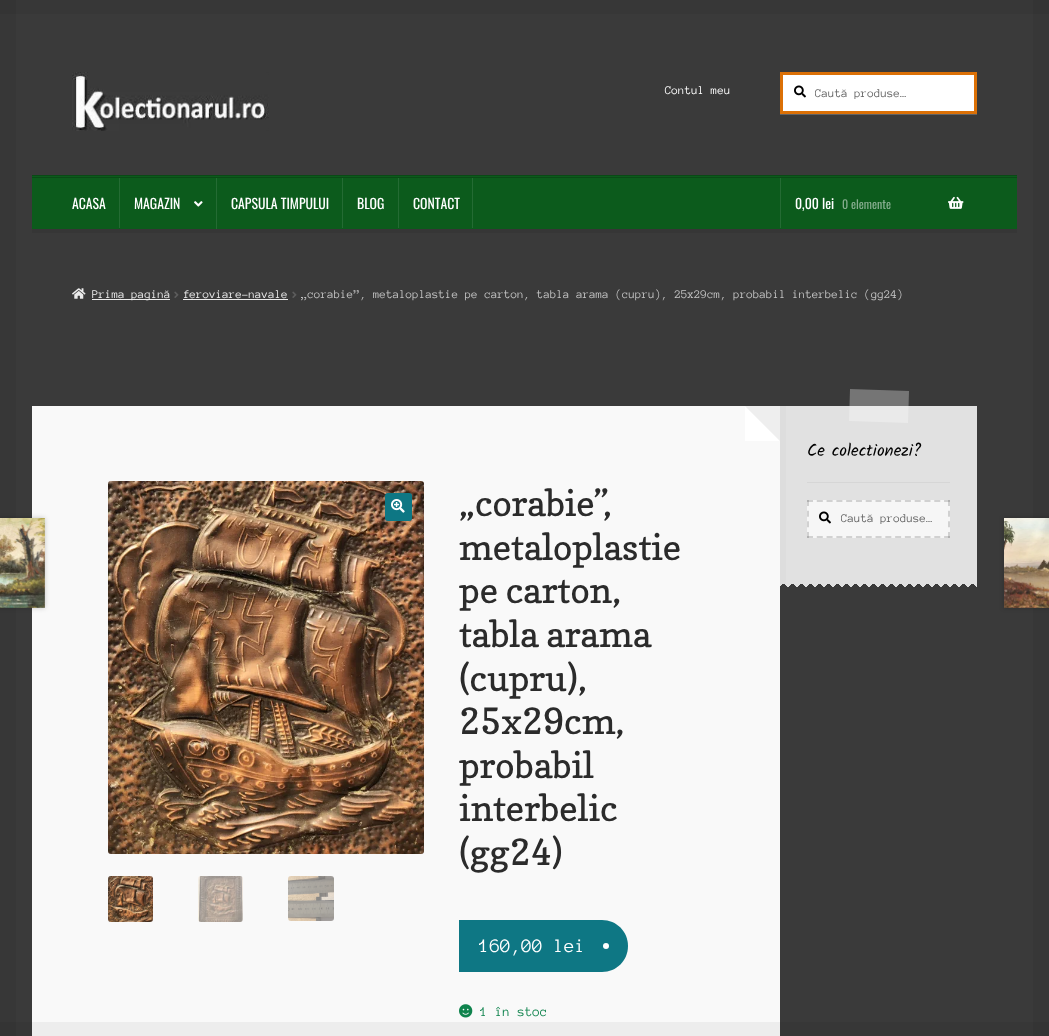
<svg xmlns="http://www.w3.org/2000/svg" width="1049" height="1036">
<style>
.a{font:12px Anonymous Pro;fill:#fff}
.b{font:12px Anonymous Pro;fill:#616161}
.c{font:13.75px Oswald;fill:#fff}
.d{font:12px Oswald;fill:#86ad8e}
.e{font:12px Anonymous Pro;fill:#ececec}
.f{font:12px Anonymous Pro;fill:#c4c4c4}
.g{font:36px Copse;fill:#2b2b2b}
.h{font:19.5px Anonymous Pro;fill:#fff}
.i{font:13.75px Anonymous Pro;fill:#0f834d}
.j{font:17px Kalam;fill:#000}
</style>
<defs>
<clipPath id="clip1"><path d="M815 87h138v12H815z"/></clipPath>
<clipPath id="clip2"><path d="M841 512h96v12H841z"/></clipPath>
</defs>
<rect width="100%" height="100%" fill="#3a3a3a"/>
<path fill="#373737" d="M0 14h16v1008H0z"/>
<path fill="#343434" d="M0 1022h16v14H0z"/>
<path fill="#343434" d="M0 0h16v14H0z"/>
<path fill="#373737" d="M16 1022h1017v14H16z"/>
<path fill="#373737" d="M16 0h1017v14H16z"/>
<image href="1.png" x="72" y="72" width="197" height="59"/>
<path fill="#ffffff33" filter="blur(0.5px)" d="M780 73h197v42H780z"/>
<path fill="#fff" stroke="#db7006" stroke-width="3" d="M781.5 73.5h194v39H781.5z"/>
<image href="2.png" x="794" y="85" width="12" height="13"/>
<path fill="#363636" d="M32 229h985v4H32z"/>
<path fill="#0c5b1c" d="M32 176h985v53H32z"/>
<path fill="#0a4916" d="M32 175h985v1H32z"/>
<path fill="#0a4916" d="M32 177h985v1H32z"/>
<path fill="#246b33" d="M119 178h1v50H119z"/>
<path fill="#246b33" d="M216 178h1v51H216z"/>
<image href="3.png" x="194" y="201" width="9" height="6"/>
<path fill="#246b33" d="M342 178h1v50H342z"/>
<path fill="#246b33" d="M398 178h1v50H398z"/>
<path fill="#246b33" d="M472 178h1v50H472z"/>
<path fill="#246b33" d="M780 178h1v50H780z"/>
<image href="4.png" x="948" y="196" width="16" height="13"/>
<image href="5.png" x="72" y="288" width="14" height="11"/>
<path fill="#ebebeb" d="M92 299h78v1H92z"/>
<image href="6.png" x="174" y="291" width="5" height="7"/>
<path fill="#ebebeb" d="M183 299h105v1H183z"/>
<image href="6.png" x="292" y="291" width="5" height="7"/>
<path fill="#f9f9f9" d="M32 406h748v616H32z"/>
<path fill="#ededed" d="M32 1022h748v14H32z"/>
<path fill="#fff" d="M780 441h-35v-35z"/>
<path fill="#eee" d="M780 406v35l-35-35z"/>
<image href="7.png" x="108" y="481" width="316" height="373"/>
<rect fill="#0e7784" x="385" y="493" width="27" height="28" rx="3"/>
<image href="8.png" x="391" y="499" width="14" height="14"/>
<image href="9.png" x="108" y="876" width="45" height="46"/>
<image href="10.png" x="198" y="876" width="45" height="46"/>
<image href="11.png" x="288" y="876" width="46" height="45"/>
<path fill="#0e7784" d="M459 920h143c14.5 0 26 11.5 26 26c0 14.5-11.5 26-26 26h-143z"/>
<circle fill="#fff" cx="606" cy="946" r="3"/>
<image href="12.png" x="459" y="1004" width="14" height="14"/>
<path fill="#00000033" filter="blur(2.5px)" d="M-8 518h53v90H-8z"/>
<image href="13.png" x="0" y="518" width="45" height="90"/>
<path fill="#373737" d="M1033 14h16v1008H1033z"/>
<path fill="#00000033" filter="blur(2.5px)" d="M1004 518h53v90H1004z"/>
<image href="14.png" x="1004" y="518" width="45" height="90"/>
<path fill="#e1e1e1" d="M786 406h191v178H786z"/>
<path fill="#ddd" d="M780 406h6v178H780z"/>
<path fill="#ffffff4d" d="M850 389l59 2l-1 32l-59-2z"/>
<path fill="#d6d6d6" d="M807 482h143v1H807z"/>
<path fill="#f6f6f6" d="M807 500h143v38H807z"/>
<image href="15.png" x="819" y="511" width="12" height="13"/>
<path fill="none" stroke="#d1d1d1" stroke-width="2" stroke-dasharray="6 3.79" d="M807 501h143"/>
<path fill="none" stroke="#00000026" stroke-width="2" stroke-dasharray="6 4.67" d="M949 500v38"/>
<path fill="none" stroke="#00000026" stroke-width="2" stroke-dasharray="6 3.79" d="M807 537h143"/>
<path fill="none" stroke="#00000026" stroke-width="2" stroke-dasharray="6 4.67" d="M808 500v38"/>
<image href="16.png" x="785" y="584" width="192" height="3"/>
<image href="17.png" x="780" y="584" width="191" height="3"/>
<path fill="#343434" d="M1033 1022h16v14H1033z"/>
<path fill="#343434" d="M1033 0h16v14H1033z"/>
<text class="a" x="665" y="94">Contul meu</text>
<g clip-path="url(#clip1)">
<text class="b" x="815" y="97">Caută produse…</text>
</g>
<text class="c" x="72" y="209">ACASA</text>
<text class="c" x="134" y="209">MAGAZIN</text>
<text class="c" x="231" y="209">CAPSULA TIMPULUI</text>
<text class="c" x="357" y="209">BLOG</text>
<text class="c" x="413" y="209">CONTACT</text>
<text class="c" x="795" y="209">0,00 lei</text>
<text class="d" x="842" y="209">0 elemente</text>
<text class="e" x="92" y="298">Prima pagină</text>
<text class="e" x="183" y="298">feroviare-navale</text>
<text class="f" x="301" y="298">„corabie”, metaloplastie pe carton, tabla arama (cupru), 25x29cm, probabil interbelic (gg24)</text>
<text class="g" x="459" y="516">„corabie”,</text>
<text class="g" x="459" y="560">metaloplastie</text>
<text class="g" x="459" y="603">pe carton,</text>
<text class="g" x="459" y="647">tabla arama</text>
<text class="g" x="459" y="691">(cupru),</text>
<text class="g" x="459" y="734">25x29cm,</text>
<text class="g" x="459" y="778">probabil</text>
<text class="g" x="459" y="821">interbelic</text>
<text class="g" x="459" y="865">(gg24)</text>
<text class="h" x="479" y="952">160,00 lei</text>
<text class="i" x="480" y="1016">1 în stoc</text>
<text class="j" x="807" y="456">Ce colectionezi?</text>
<g clip-path="url(#clip2)">
<text class="b" x="841" y="522">Caută produse…</text>
</g>
</svg>
